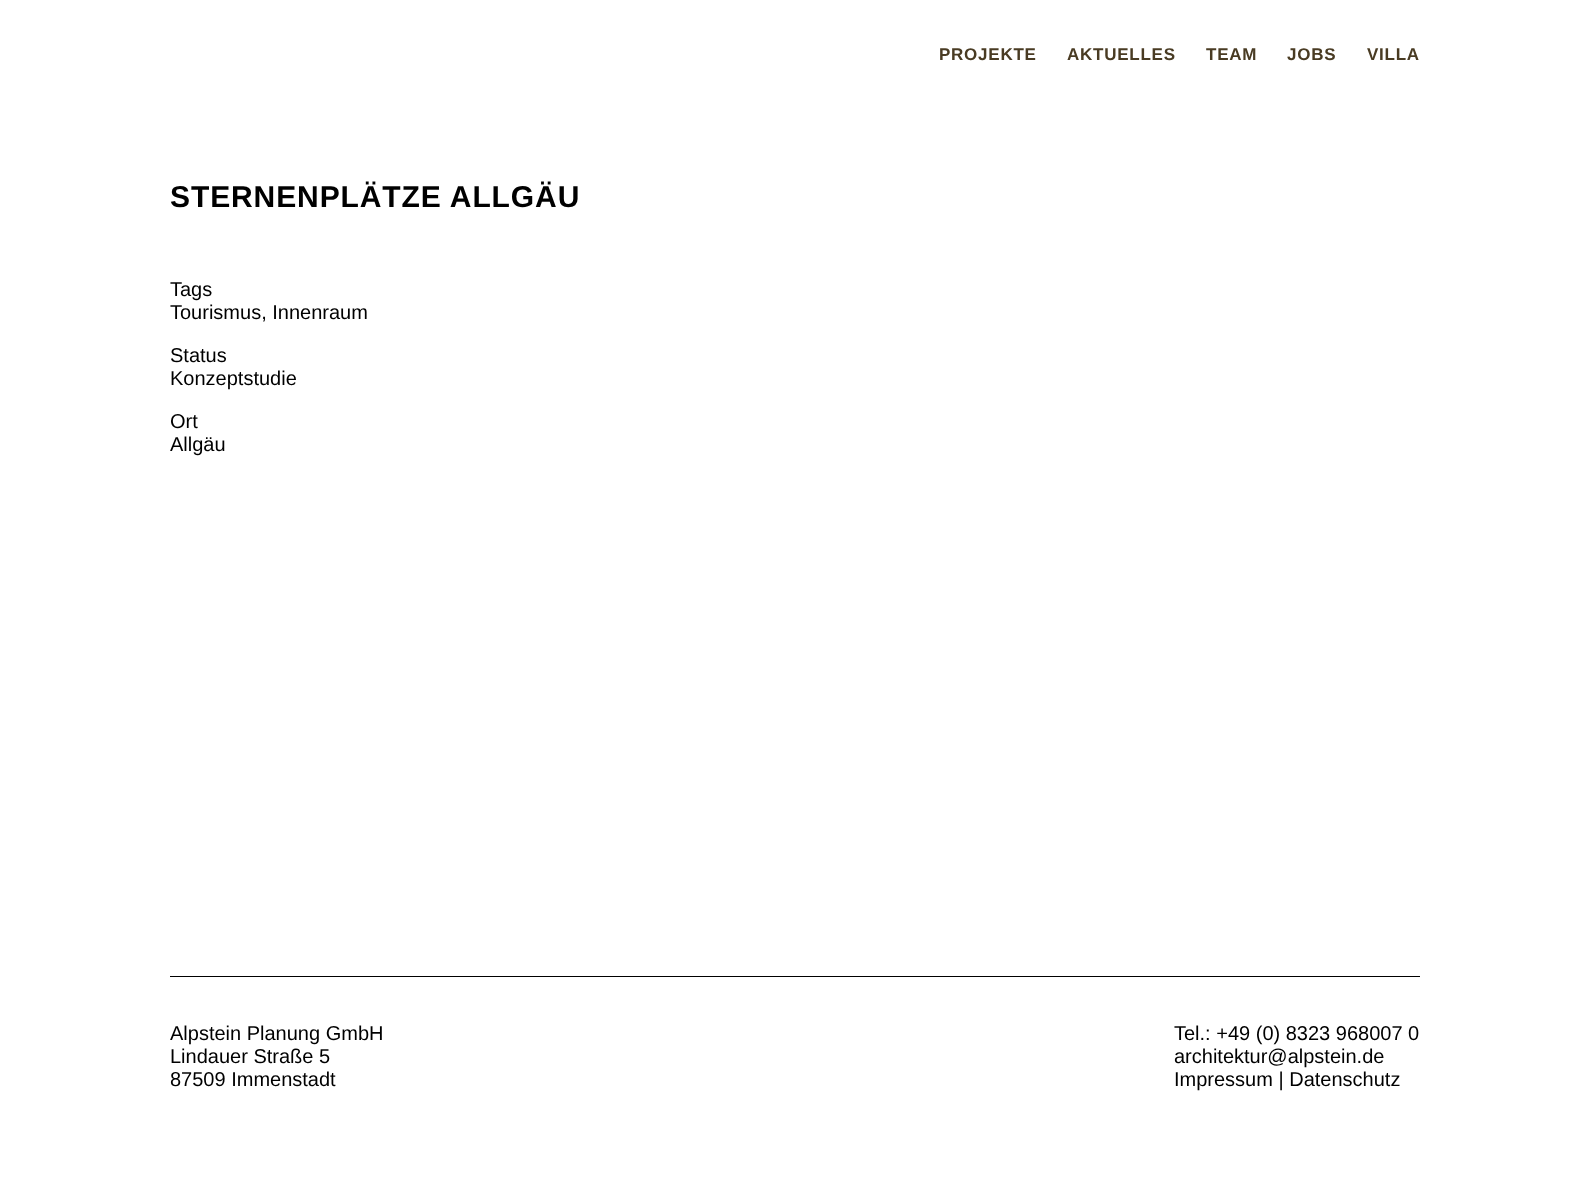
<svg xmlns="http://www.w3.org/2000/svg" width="1589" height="1177">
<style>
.a{font:bold 17px Liberation Sans;letter-spacing:0.75px;fill:#493b23}
.b{font:bold 30px Liberation Sans;letter-spacing:0.9px;fill:#000}
.c{font:20px Liberation Sans;fill:#000}
</style>
<rect width="100%" height="100%" fill="#fff"/>
<path fill="#000" d="M170 976h1250v1H170z"/>
<text class="a" x="939" y="60">PROJEKTE</text>
<text class="a" x="1067" y="60">AKTUELLES</text>
<text class="a" x="1206" y="60">TEAM</text>
<text class="a" x="1287" y="60">JOBS</text>
<text class="a" x="1367" y="60">VILLA</text>
<text class="b" x="170" y="207">STERNENPLÄTZE ALLGÄU</text>
<text class="c" x="170" y="296">Tags</text>
<text class="c" x="170" y="319">Tourismus, Innenraum</text>
<text class="c" x="170" y="362">Status</text>
<text class="c" x="170" y="385">Konzeptstudie</text>
<text class="c" x="170" y="428">Ort</text>
<text class="c" x="170" y="451">Allgäu</text>
<text class="c" x="170" y="1040">Alpstein Planung GmbH</text>
<text class="c" x="170" y="1063">Lindauer Straße 5</text>
<text class="c" x="170" y="1086">87509 Immenstadt</text>
<text class="c" x="1174" y="1040">Tel.: +49 (0) 8323 968007 0</text>
<text class="c" x="1174" y="1063">architektur@alpstein.de</text>
<text class="c" x="1174" y="1086">Impressum | Datenschutz</text>
</svg>
